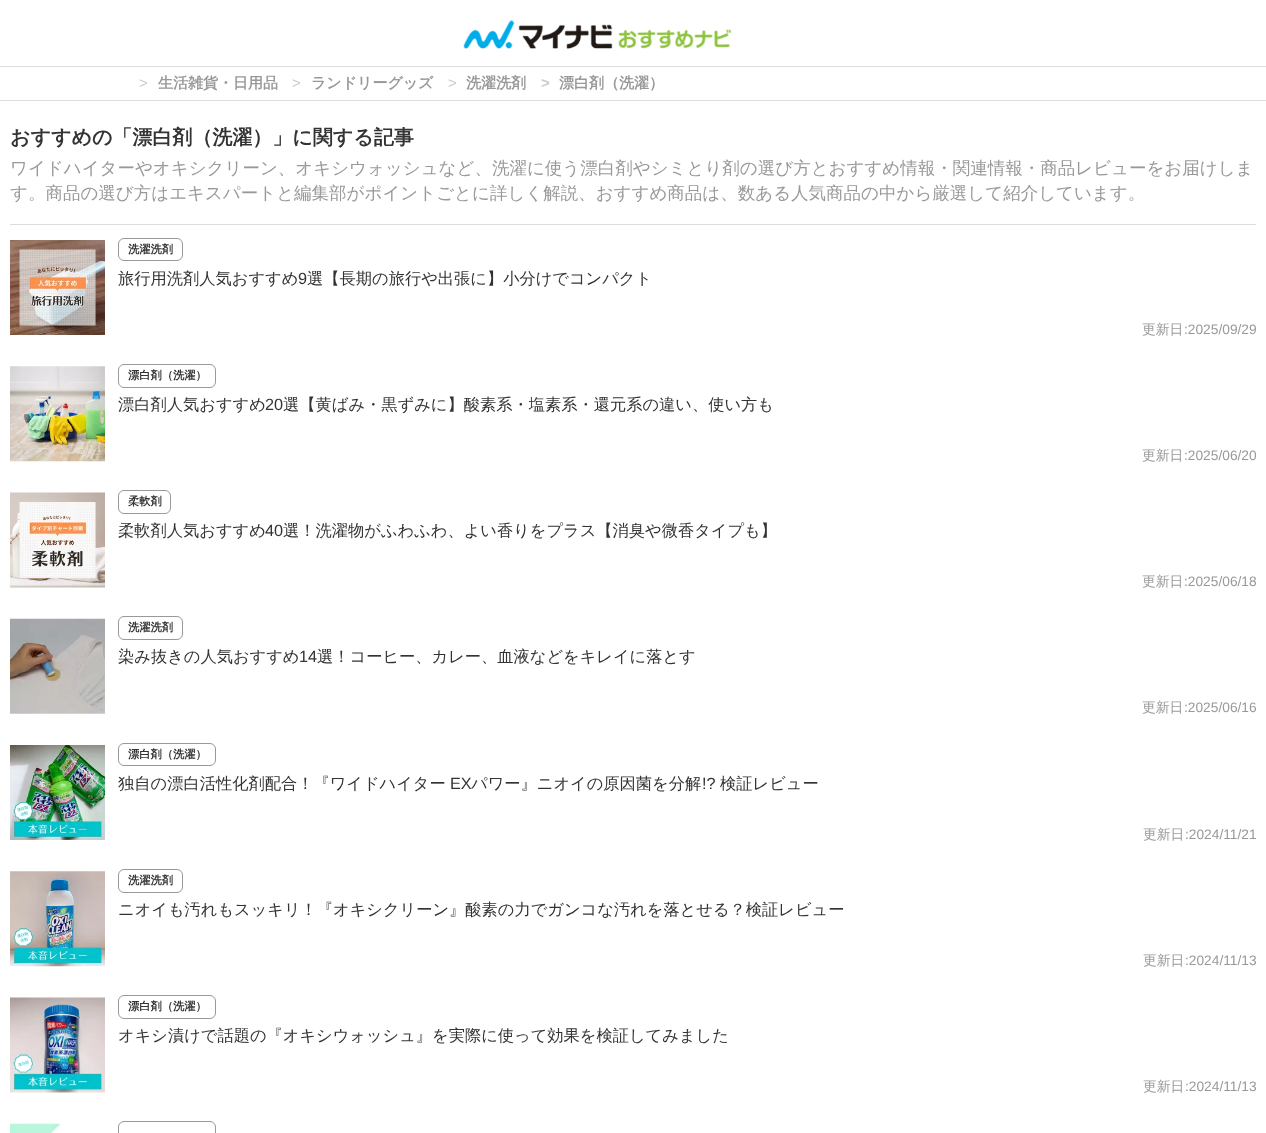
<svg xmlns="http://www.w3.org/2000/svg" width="1266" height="1133">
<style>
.a{font:15px Liberation Sans;fill:#ccc}
.b{font:bold 15px WenQuanYi Zen Hei;fill:#999}
.c{font:bold 15px Liberation Sans;fill:#ccc}
.d{font:bold 20px WenQuanYi Zen Hei;fill:#333}
.e{font:500 17.5px WenQuanYi Zen Hei;fill:#999}
.f{font:bold 11.25px WenQuanYi Zen Hei;fill:#333}
.g{font:500 16.25px WenQuanYi Zen Hei;fill:#333}
.h{font:16.25px Liberation Sans;fill:#333}
.i{font:500 13.75px WenQuanYi Zen Hei;fill:#999}
.j{font:13.75px Liberation Sans;fill:#999}
</style>
<rect width="100%" height="100%" fill="#fff"/>
<path fill="#ddd" d="M0 66h1266v1H0z"/>
<image href="1.png" x="463" y="20" width="269" height="29"/>
<path fill="#ddd" d="M0 100h1266v1H0z"/>
<path fill="#ddd" d="M10 224h1246v1H10z"/>
<image href="2.png" x="10" y="240" width="95" height="95"/>
<rect fill="none" stroke="#999" x="118.5" y="238.5" width="64" height="22" rx="5.5"/>
<image href="3.png" x="10" y="366" width="95" height="96"/>
<rect fill="none" stroke="#999" x="118.5" y="364.5" width="97" height="23" rx="5.5"/>
<image href="4.png" x="10" y="492" width="95" height="96"/>
<rect fill="none" stroke="#999" x="118.5" y="490.5" width="52" height="23" rx="5.5"/>
<image href="5.png" x="10" y="618" width="95" height="96"/>
<rect fill="none" stroke="#999" x="118.5" y="616.5" width="64" height="23" rx="5.5"/>
<image href="6.png" x="10" y="745" width="95" height="95"/>
<rect fill="none" stroke="#999" x="118.5" y="743.5" width="97" height="22" rx="5.5"/>
<image href="7.png" x="10" y="871" width="95" height="96"/>
<rect fill="none" stroke="#999" x="118.5" y="869.5" width="64" height="23" rx="5.5"/>
<image href="8.png" x="10" y="997" width="95" height="96"/>
<rect fill="none" stroke="#999" x="118.5" y="995.5" width="97" height="23" rx="5.5"/>
<image href="9.png" x="10" y="1123" width="51" height="10"/>
<rect fill="none" stroke="#999" x="118.5" y="1121.5" width="97" height="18" rx="5.5"/>
<text class="a" x="139" y="88">&gt;</text>
<text class="b" x="158" y="88">生活雑貨・日用品</text>
<text class="a" x="292" y="88">&gt;</text>
<text class="b" x="311" y="88">ランドリーグッズ</text>
<text class="a" x="448" y="88">&gt;</text>
<text class="b" x="466" y="88">洗濯洗剤</text>
<text class="c" x="541" y="88">&gt;</text>
<text class="b" x="559" y="88">漂白剤（洗濯）</text>
<text class="d" x="10" y="144">おすすめの「漂白剤（洗濯）」に関する記事</text>
<text class="e" x="10" y="174">ワイドハイターやオキシクリーン、オキシウォッシュなど、洗濯に使う漂白剤やシミとり剤の選び方とおすすめ情報・関連情報・商品レビューをお届けしま</text>
<text class="e" x="10" y="199">す。商品の選び方はエキスパートと編集部がポイントごとに詳しく解説、おすすめ商品は、数ある人気商品の中から厳選して紹介しています。</text>
<text class="f" x="128" y="253">洗濯洗剤</text>
<text class="g" x="118" y="284">旅行用洗剤人気おすすめ</text>
<text class="h" x="298" y="284">9</text>
<text class="g" x="307" y="284">選【長期の旅行や出張に】小分けでコンパクト</text>
<text class="i" x="1142" y="334">更新日</text>
<text class="j" x="1184" y="334">:2025/09/29</text>
<text class="f" x="128" y="379">漂白剤（洗濯）</text>
<text class="g" x="118" y="410">漂白剤人気おすすめ</text>
<text class="h" x="265" y="410">20</text>
<text class="g" x="283" y="410">選【黄ばみ・黒ずみに】酸素系・塩素系・還元系の違い、使い方も</text>
<text class="i" x="1142" y="460">更新日</text>
<text class="j" x="1184" y="460">:2025/06/20</text>
<text class="f" x="128" y="505">柔軟剤</text>
<text class="g" x="118" y="536">柔軟剤人気おすすめ</text>
<text class="h" x="265" y="536">40</text>
<text class="g" x="283" y="536">選！洗濯物がふわふわ、よい香りをプラス【消臭や微香タイプも】</text>
<text class="i" x="1142" y="586">更新日</text>
<text class="j" x="1184" y="586">:2025/06/18</text>
<text class="f" x="128" y="631">洗濯洗剤</text>
<text class="g" x="118" y="662">染み抜きの人気おすすめ</text>
<text class="h" x="299" y="662">14</text>
<text class="g" x="317" y="662">選！コーヒー、カレー、血液などをキレイに落とす</text>
<text class="i" x="1142" y="712">更新日</text>
<text class="j" x="1184" y="712">:2025/06/16</text>
<text class="f" x="128" y="758">漂白剤（洗濯）</text>
<text class="g" x="118" y="789">独自の漂白活性化剤配合！『ワイドハイター</text>
<text class="h" x="450" y="789">EX</text>
<text class="g" x="471" y="789">パワー』ニオイの原因菌を分解</text>
<text class="h" x="702" y="789">!?</text>
<text class="g" x="720" y="789">検証レビュー</text>
<text class="i" x="1143" y="839">更新日</text>
<text class="j" x="1185" y="839">:2024/11/21</text>
<text class="f" x="128" y="884">洗濯洗剤</text>
<text class="g" x="118" y="915">ニオイも汚れもスッキリ！『オキシクリーン』酸素の力でガンコな汚れを落とせる？検証レビュー</text>
<text class="i" x="1143" y="965">更新日</text>
<text class="j" x="1185" y="965">:2024/11/13</text>
<text class="f" x="128" y="1010">漂白剤（洗濯）</text>
<text class="g" x="118" y="1041">オキシ漬けで話題の『オキシウォッシュ』を実際に使って効果を検証してみました</text>
<text class="i" x="1143" y="1091">更新日</text>
<text class="j" x="1185" y="1091">:2024/11/13</text>
</svg>
